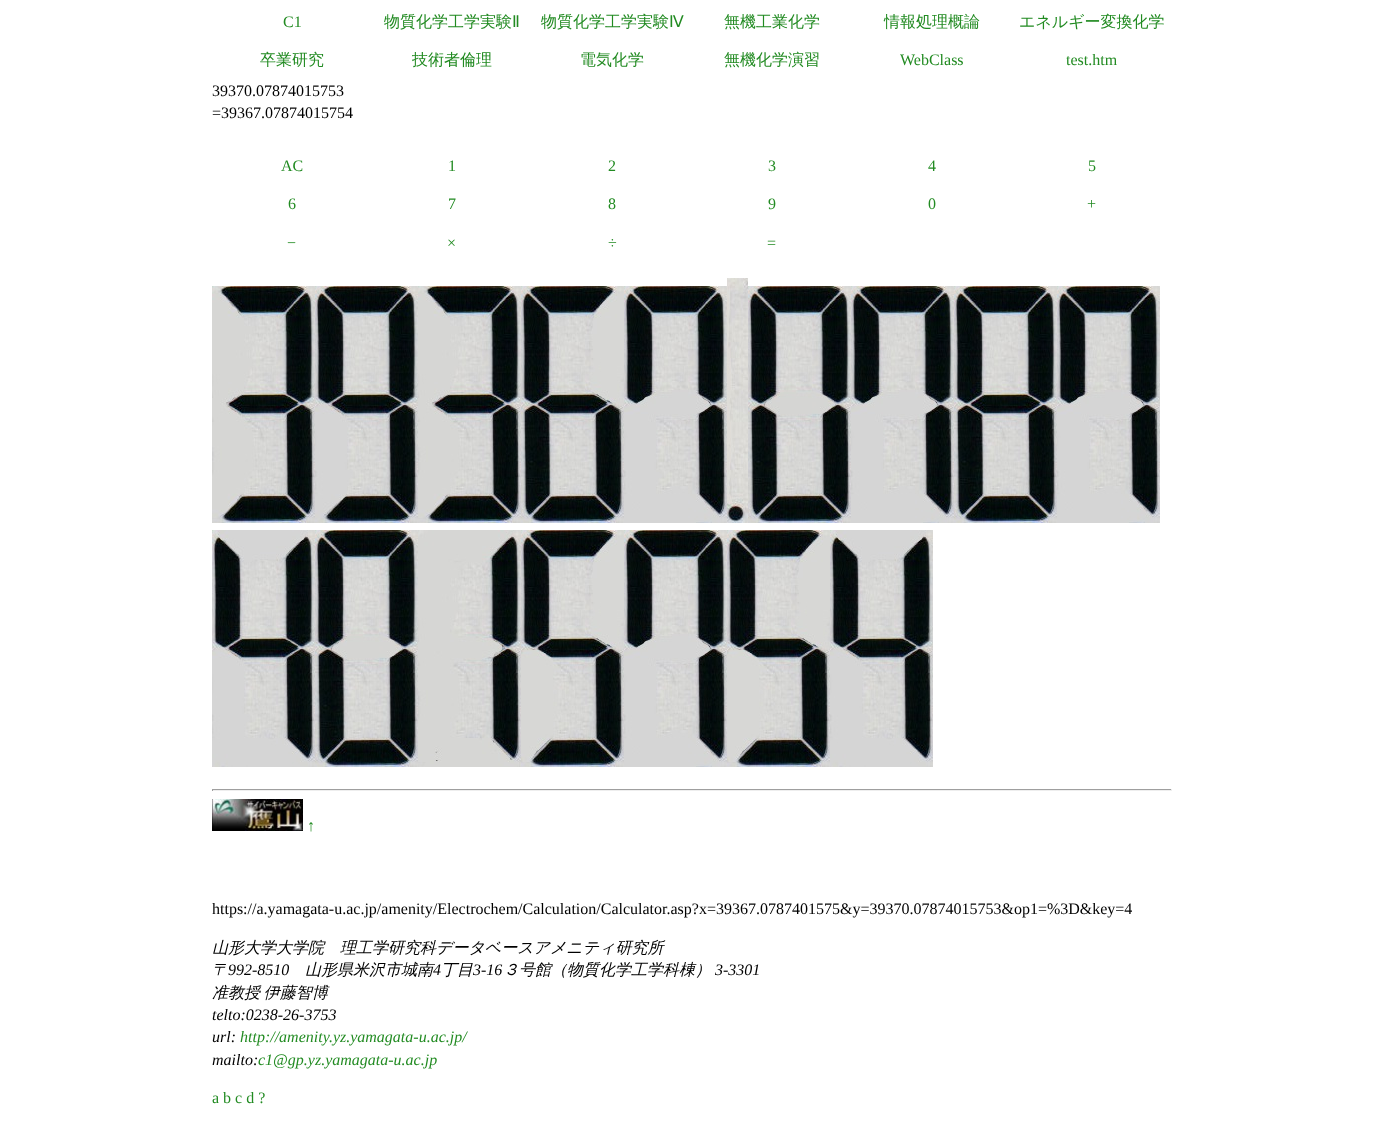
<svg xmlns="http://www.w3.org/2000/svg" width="1384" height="1125">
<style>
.a{font:16px Liberation Serif;fill:#228b22}
.b{font:500 16px WenQuanYi Zen Hei;fill:#228b22}
.c{font:16px DejaVu Sans;fill:#228b22}
.d{font:16px Liberation Serif;fill:#000}
.e{font:italic 500 16px WenQuanYi Zen Hei;fill:#000}
.f{font:italic 16px Liberation Serif;fill:#000}
.g{font:italic 16px Liberation Serif;fill:#228b22}
</style>
<rect width="100%" height="100%" fill="#fff"/>
<image href="1.png" x="212" y="286" width="103" height="237"/>
<image href="2.png" x="315" y="286" width="103" height="237"/>
<image href="1.png" x="418" y="286" width="103" height="237"/>
<image href="3.png" x="521" y="286" width="103" height="237"/>
<image href="4.png" x="624" y="286" width="103" height="237"/>
<image href="5.png" x="727" y="278" width="21" height="245"/>
<image href="6.png" x="748" y="286" width="103" height="237"/>
<image href="4.png" x="851" y="286" width="103" height="237"/>
<image href="7.png" x="954" y="286" width="103" height="237"/>
<image href="4.png" x="1057" y="286" width="103" height="237"/>
<image href="8.png" x="212" y="530" width="103" height="237"/>
<image href="6.png" x="315" y="530" width="103" height="237"/>
<image href="9.png" x="418" y="530" width="103" height="237"/>
<image href="10.png" x="521" y="530" width="103" height="237"/>
<image href="4.png" x="624" y="530" width="103" height="237"/>
<image href="10.png" x="727" y="530" width="103" height="237"/>
<image href="8.png" x="830" y="530" width="103" height="237"/>
<path fill="#9f9f9f" d="M212 789h960v1H212z"/>
<path fill="#eee" d="M1171 789h1v2H1171z"/>
<path fill="#eee" d="M212 790h960v1H212z"/>
<path fill="#9f9f9f" d="M212 789h1v2H212z"/>
<image href="11.png" x="212" y="799" width="91" height="32"/>
<text class="a" x="283" y="27">C1</text>
<text class="b" x="384" y="27">物質化学工学実験</text>
<text class="c" x="512" y="27">Ⅱ</text>
<text class="b" x="541" y="27">物質化学工学実験</text>
<text class="c" x="669" y="27">Ⅳ</text>
<text class="b" x="724" y="27">無機工業化学</text>
<text class="b" x="884" y="27">情報処理概論</text>
<text class="b" x="1019" y="27">エネルギー変換化学</text>
<text class="b" x="260" y="65">卒業研究</text>
<text class="b" x="412" y="65">技術者倫理</text>
<text class="b" x="580" y="65">電気化学</text>
<text class="b" x="724" y="65">無機化学演習</text>
<text class="a" x="900" y="65">WebClass</text>
<text class="a" x="1066" y="65">test.htm</text>
<text class="d" x="212" y="96">39370.07874015753</text>
<text class="d" x="212" y="118">=39367.07874015754</text>
<text class="a" x="281" y="171">AC</text>
<text class="a" x="448" y="171">1</text>
<text class="a" x="608" y="171">2</text>
<text class="a" x="768" y="171">3</text>
<text class="a" x="928" y="171">4</text>
<text class="a" x="1088" y="171">5</text>
<text class="a" x="288" y="209">6</text>
<text class="a" x="448" y="209">7</text>
<text class="a" x="608" y="209">8</text>
<text class="a" x="768" y="209">9</text>
<text class="a" x="928" y="209">0</text>
<text class="a" x="1087" y="209">+</text>
<text class="a" x="287" y="248">−</text>
<text class="a" x="447" y="248">×</text>
<text class="a" x="608" y="248">÷</text>
<text class="a" x="767" y="248">=</text>
<text class="a" x="307" y="831">↑</text>
<text class="d" x="212" y="914">https://a.yamagata-u.ac.jp/amenity/Electrochem/Calculation/Calculator.asp?x=39367.0787401575&amp;y=39370.07874015753&amp;op1=%3D&amp;key=4</text>
<text class="e" x="212" y="953">山形大学大学院　理工学研究科データベースアメニティ研究所</text>
<text class="e" x="212" y="975">〒</text>
<text class="f" x="228" y="975">992-8510</text>
<text class="e" x="305" y="975">山形県米沢市城南</text>
<text class="f" x="433" y="975">4</text>
<text class="e" x="441" y="975">丁目</text>
<text class="f" x="473" y="975">3-16</text>
<text class="e" x="503" y="975">３号館（物質化学工学科棟）</text>
<text class="f" x="715" y="975">3-3301</text>
<text class="e" x="212" y="998" word-spacing="-1">准教授 伊藤智博</text>
<text class="f" x="212" y="1020">telto:0238-26-3753</text>
<text class="f" x="212" y="1042">url:</text>
<text class="g" x="240" y="1042">http://amenity.yz.yamagata-u.ac.jp/</text>
<text class="f" x="212" y="1065">mailto:</text>
<text class="g" x="258" y="1065">c1@gp.yz.yamagata-u.ac.jp</text>
<text class="a" x="212" y="1103">a b c d ?</text>
</svg>
